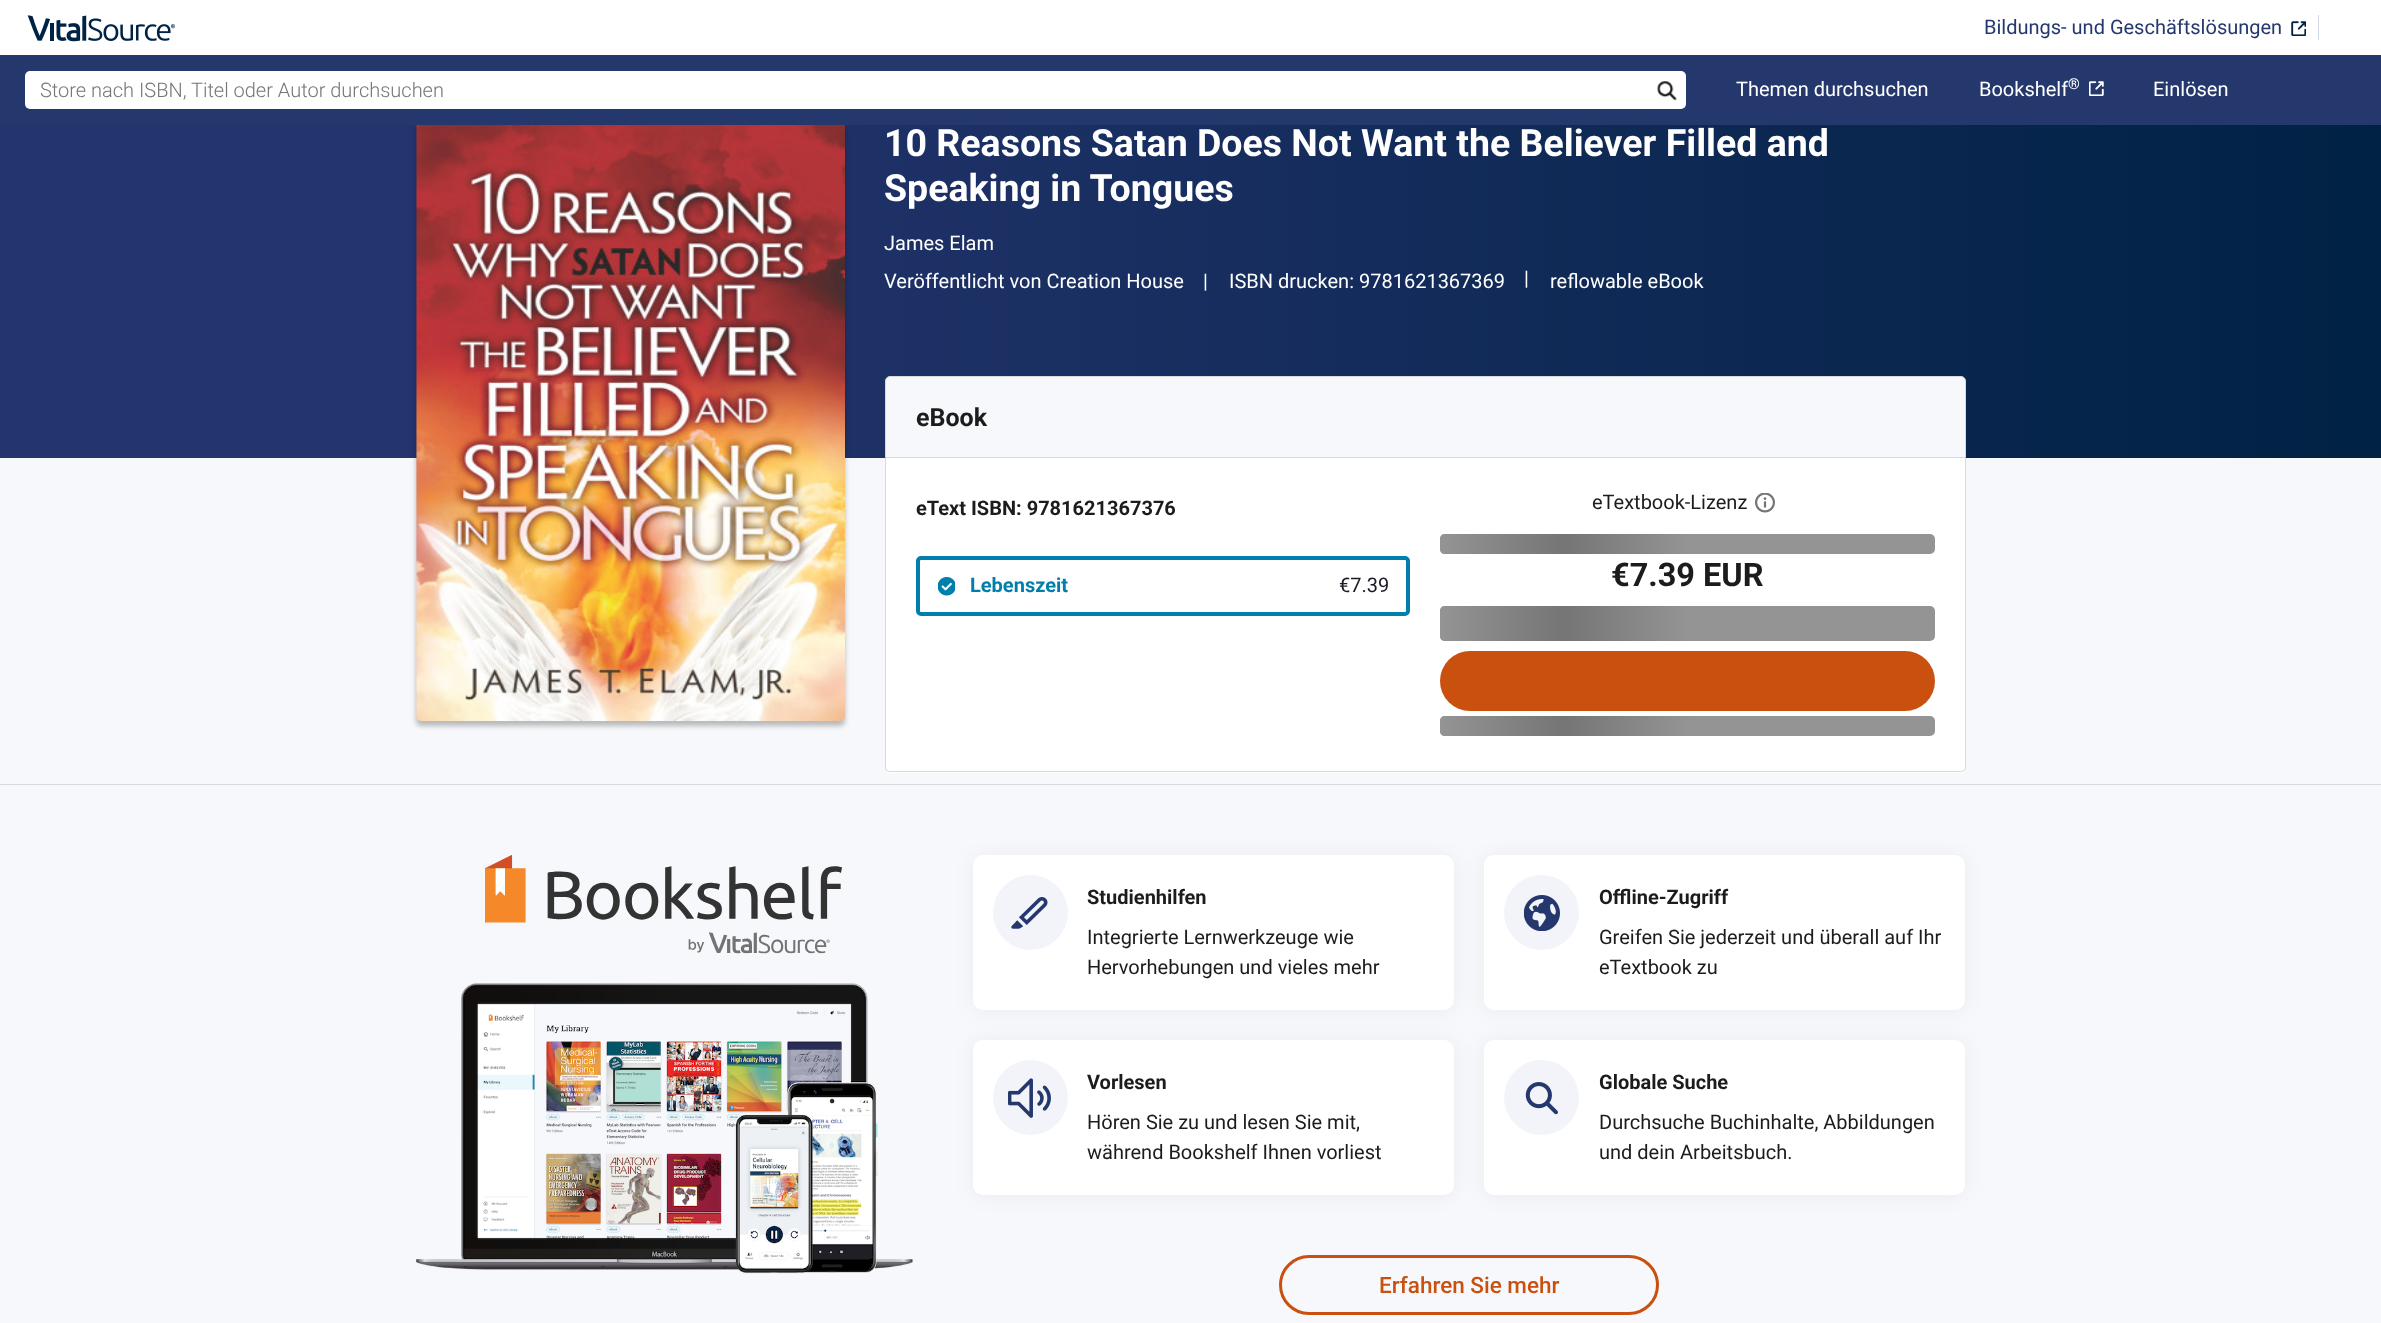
<svg xmlns="http://www.w3.org/2000/svg" width="2381" height="1323">
<style>
.a{font:20px Roboto;fill:#24386e}
.b{font:300 20px Roboto;fill:#757575}
.c{font:20px Roboto;fill:#fff}
.d{font:15px Roboto;fill:#fff}
.e{font:bold 37.5px Roboto;fill:#fff}
.f{font:bold 25px Roboto;fill:#1c1c1c}
.g{font:bold 20px Roboto;fill:#1c1c1c}
.h{font:bold 20px Roboto;fill:#007fad}
.i{font:20px Roboto;fill:#1b1b26}
.j{font:20px Roboto;fill:#1c1c1c}
.k{font:bold 32.5px Roboto;fill:#1c1c1c}
.l{font:500 22.5px Roboto;fill:#ca500f}
</style>
<defs>
<linearGradient id="g1" gradientUnits="userSpaceOnUse" x1="2381" y1="264" x2="0" y2="264"><stop offset="0" stop-color="#024"/><stop offset="0.77" stop-color="#24346e"/></linearGradient>
<linearGradient id="g2" gradientUnits="userSpaceOnUse" x1="1440" y1="544" x2="1690" y2="544"><stop offset="0" stop-color="#949494"/><stop offset="0.5" stop-color="#757575"/><stop offset="1" stop-color="#949494"/></linearGradient>
<linearGradient id="g3" gradientUnits="userSpaceOnUse" x1="1440" y1="624" x2="1690" y2="624"><stop offset="0" stop-color="#949494"/><stop offset="0.5" stop-color="#757575"/><stop offset="1" stop-color="#949494"/></linearGradient>
<linearGradient id="g4" gradientUnits="userSpaceOnUse" x1="1440" y1="726" x2="1690" y2="726"><stop offset="0" stop-color="#949494"/><stop offset="0.5" stop-color="#757575"/><stop offset="1" stop-color="#949494"/></linearGradient>
</defs>
<rect width="100%" height="100%" fill="#fff"/>
<image href="1.png" x="27" y="15" width="148" height="27"/>
<image href="2.png" x="2291" y="21" width="15" height="15"/>
<path fill="#d3d7e2" d="M2318 15h1v25H2318z"/>
<path fill="#f6f8fc" d="M0 458h2381v326H0z"/>
<path fill="url(#g1)" d="M0 125h2381v333H0z"/>
<rect fill="#00000040" filter="blur(2.5px)" x="416" y="126" width="429" height="600" rx="5"/>
<path fill="#24386e" d="M0 55h2381v70H0z"/>
<rect fill="#fff" x="25" y="71" width="1661" height="38" rx="5"/>
<image href="3.png" x="1657" y="81" width="20" height="20"/>
<image href="4.png" x="2089" y="81" width="15" height="15"/>
<image href="5.png" x="416" y="125" width="429" height="596"/>
<path fill="#f6f8fc" stroke="#dadada" d="M890 376.5h1071c2.5 0 4.5 2 4.5 4.5v76.5h-1080v-76.5c0-2.5 2-4.5 4.5-4.5z"/>
<path fill="#fff" d="M885 458h1081v310c0 3-2 5-5 5h-1071c-3 0-5-2-5-5z"/>
<path fill="#dadada" fill-rule="evenodd" d="M885 458h1081v310c0 2-2 4-5 4h-1071c-3 0-5-2-5-4zm1 0h1079v310c0 2-2 3-4 3h-1071c-2 0-4-1-4-3z"/>
<rect fill="none" stroke="#007fad" stroke-width="4" x="918" y="558" width="490" height="56" rx="3"/>
<image href="6.png" x="938" y="577" width="17" height="19"/>
<image href="7.png" x="1755" y="493" width="20" height="20"/>
<rect fill="#949494" x="1440" y="534" width="495" height="20" rx="5"/>
<path fill="url(#g2)" d="M1445 534h245v20h-245c-3 0-5-2-5-5v-10c0-3 2-5 5-5z"/>
<rect fill="#949494" x="1440" y="606" width="495" height="35" rx="5"/>
<path fill="url(#g3)" d="M1445 606h245v35h-245c-3 0-5-2-5-5v-25c0-3 2-5 5-5z"/>
<rect fill="#ca500f" x="1440" y="651" width="495" height="60" rx="30"/>
<rect fill="#949494" x="1440" y="716" width="495" height="20" rx="5"/>
<path fill="url(#g4)" d="M1445 716h245v20h-245c-3 0-5-2-5-5v-10c0-3 2-5 5-5z"/>
<path fill="#f6f8fc" d="M0 785h2381v538H0z"/>
<path fill="#dadada" d="M0 784h2381v1H0z"/>
<image href="8.png" x="485" y="855" width="357" height="99"/>
<image href="9.png" x="416" y="983" width="497" height="291"/>
<rect fill="#0000000d" filter="blur(10px)" x="973" y="856" width="481" height="155" rx="10"/>
<rect fill="#fff" x="973" y="855" width="481" height="155" rx="10"/>
<circle fill="#f2f4f9" cx="1030.5" cy="912.5" r="37.5"/>
<image href="10.png" x="1011" y="897" width="37" height="32"/>
<rect fill="#0000000d" filter="blur(10px)" x="973" y="1041" width="481" height="155" rx="10"/>
<rect fill="#fff" x="973" y="1040" width="481" height="155" rx="10"/>
<rect fill="#0000000d" filter="blur(10px)" x="1484" y="856" width="481" height="155" rx="10"/>
<rect fill="#fff" x="1484" y="855" width="481" height="155" rx="10"/>
<circle fill="#f2f4f9" cx="1541.5" cy="912.5" r="37.5"/>
<image href="11.png" x="1524" y="895" width="36" height="36"/>
<circle fill="#f2f4f9" cx="1030.5" cy="1097.5" r="37.5"/>
<image href="12.png" x="1008" y="1078" width="43" height="40"/>
<rect fill="#0000000d" filter="blur(10px)" x="1484" y="1041" width="481" height="155" rx="10"/>
<rect fill="#fff" x="1484" y="1040" width="481" height="155" rx="10"/>
<circle fill="#f2f4f9" cx="1541.5" cy="1097.5" r="37.5"/>
<image href="13.png" x="1525" y="1082" width="33" height="33"/>
<rect fill="none" stroke="#ca500f" stroke-width="3" x="1280.5" y="1256.5" width="377" height="57" rx="28.5"/>
<text class="a" x="1984" y="34">Bildungs- und Geschäftslösungen</text>
<text class="b" x="40" y="97">Store nach ISBN, Titel oder Autor durchsuchen</text>
<text class="c" x="1736" y="96">Themen durchsuchen</text>
<text class="c" x="1979" y="96">Bookshelf</text>
<text class="d" x="2068" y="89">®</text>
<text class="c" x="2153" y="96">Einlösen</text>
<text class="e" x="884" y="156">10 Reasons Satan Does Not Want the Believer Filled and</text>
<text class="e" x="884" y="201">Speaking in Tongues</text>
<text class="c" x="884" y="250">James Elam</text>
<text class="c" x="884" y="288">Veröffentlicht von Creation House</text>
<text class="c" x="1203" y="288">|</text>
<text class="c" x="1229" y="288">ISBN drucken: 9781621367369</text>
<text class="c" x="1524" y="285">|</text>
<text class="c" x="1550" y="288">reflowable eBook</text>
<text class="f" x="916" y="426">eBook</text>
<text class="g" x="916" y="515">eText ISBN: 9781621367376</text>
<text class="h" x="970" y="592">Lebenszeit</text>
<text class="i" x="1339" y="592">€7.39</text>
<text class="j" x="1592" y="509">eTextbook-Lizenz</text>
<text class="k" x="1611" y="586">€7.39 EUR</text>
<text class="g" x="1087" y="904">Studienhilfen</text>
<text class="j" x="1087" y="944">Integrierte Lernwerkzeuge wie</text>
<text class="j" x="1087" y="974">Hervorhebungen und vieles mehr</text>
<text class="g" x="1599" y="904">Offline-Zugriff</text>
<text class="j" x="1599" y="944">Greifen Sie jederzeit und überall auf Ihr</text>
<text class="j" x="1599" y="974">eTextbook zu</text>
<text class="g" x="1087" y="1089">Vorlesen</text>
<text class="j" x="1087" y="1129">Hören Sie zu und lesen Sie mit,</text>
<text class="j" x="1087" y="1159">während Bookshelf Ihnen vorliest</text>
<text class="g" x="1599" y="1089">Globale Suche</text>
<text class="j" x="1599" y="1129">Durchsuche Buchinhalte, Abbildungen</text>
<text class="j" x="1599" y="1159">und dein Arbeitsbuch.</text>
<text class="l" x="1379" y="1293">Erfahren Sie mehr</text>
</svg>
